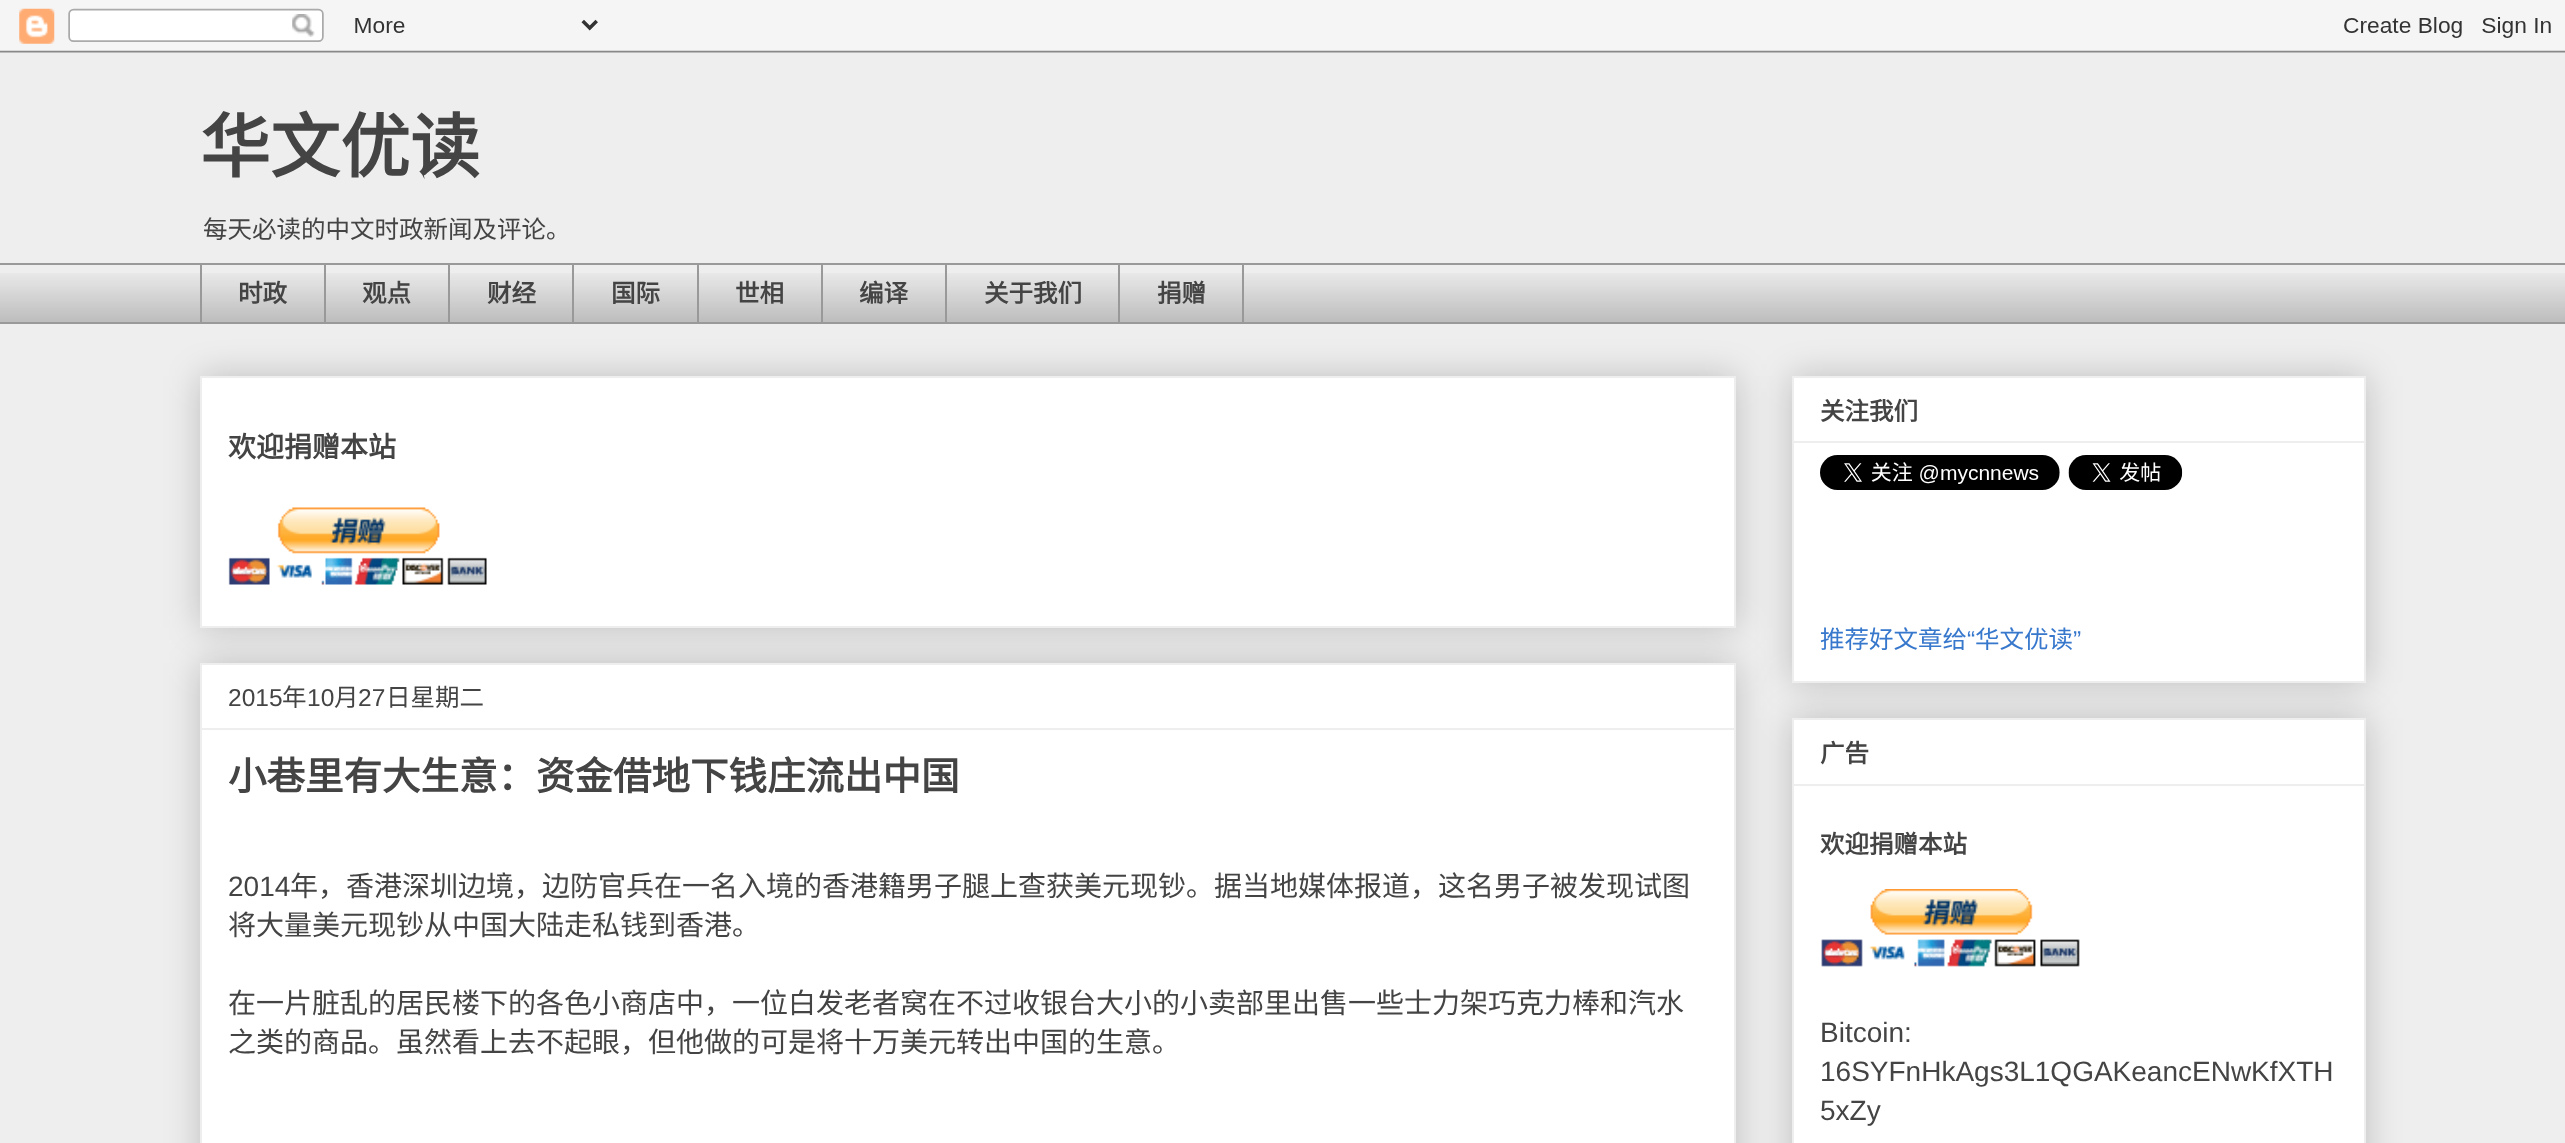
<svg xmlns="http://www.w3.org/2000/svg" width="2565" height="1143">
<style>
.a{font:bold 70px Noto Sans CJK SC;fill:#444}
.b{font:24.5px Noto Sans CJK SC;fill:#444}
.c{font:bold 24.5px Noto Sans CJK SC;fill:#444}
.d{font:bold 28px Noto Sans CJK SC;fill:#444}
.e{font:24.5px Liberation Sans;fill:#444}
.f{font:bold 38.5px Noto Sans CJK SC;fill:#444}
.g{font:28px Liberation Sans;fill:#444}
.h{font:28px Noto Sans CJK SC;fill:#444}
.i{font:24.5px Noto Sans CJK SC;fill:#3778cd}
.j{font:24.5px Liberation Sans;fill:#3778cd}
</style>
<rect width="100%" height="100%" fill="#eee"/>
<image href="1.png" x="0" y="0" width="2565" height="53"/>
<image href="2.png" x="0" y="273" width="2565" height="49"/>
<path fill="#999" d="M0 263h2565v2H0z"/>
<path fill="#999" d="M200 263h2v61H200z"/>
<path fill="#999" d="M324 263h2v61H324z"/>
<path fill="#999" d="M448 263h2v61H448z"/>
<path fill="#999" d="M572 263h2v61H572z"/>
<path fill="#999" d="M697 263h2v61H697z"/>
<path fill="#999" d="M821 263h2v61H821z"/>
<path fill="#999" d="M945 263h2v61H945z"/>
<path fill="none" stroke="#999" stroke-width="2" d="M1119 264h124v59H1119z"/>
<path fill="#999" d="M0 322h2565v2H0z"/>
<path fill="#00000033" filter="blur(17.5px)" d="M200 376h1536v252H200z"/>
<path fill="#fff" stroke="#eee" stroke-width="2" d="M201 377h1534v250H201z"/>
<image href="3.png" x="228" y="507" width="259" height="78"/>
<path fill="#00000033" filter="blur(17.5px)" d="M200 663h1536v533H200z"/>
<path fill="#fff" stroke="#eee" stroke-width="2" d="M201 664h1534v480H201z"/>
<path fill="#eee" d="M201 728h1533v2H201z"/>
<path fill="#00000033" filter="blur(17.5px)" d="M1792 376h574v307H1792z"/>
<path fill="#fff" stroke="#eee" stroke-width="2" d="M1793 377h572v305H1793z"/>
<path fill="#eee" d="M1794 441h570v2H1794z"/>
<image href="4.png" x="1820" y="455" width="240" height="35"/>
<image href="5.png" x="2068" y="455" width="115" height="35"/>
<path fill="#00000033" filter="blur(17.5px)" d="M1792 718h574v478H1792z"/>
<path fill="#fff" stroke="#eee" stroke-width="2" d="M1793 719h572v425H1793z"/>
<path fill="#eee" d="M1794 784h570v2H1794z"/>
<image href="6.png" x="1821" y="889" width="259" height="78"/>
<text class="a" x="200" y="172">华文优读</text>
<text class="b" x="203" y="238">每天必读的中文时政新闻及评论。</text>
<text class="c" x="238" y="302">时政</text>
<text class="c" x="362" y="302">观点</text>
<text class="c" x="487" y="302">财经</text>
<text class="c" x="611" y="302">国际</text>
<text class="c" x="735" y="302">世相</text>
<text class="c" x="859" y="302">编译</text>
<text class="c" x="984" y="302">关于我们</text>
<text class="c" x="1157" y="302">捐赠</text>
<text class="d" x="228" y="457">欢迎捐赠本站</text>
<text class="e" x="228" y="706">2015</text>
<text class="b" x="282" y="706">年</text>
<text class="e" x="307" y="706">10</text>
<text class="b" x="334" y="706">月</text>
<text class="e" x="358" y="706">27</text>
<text class="b" x="386" y="706">日星期二</text>
<text class="f" x="228" y="790">小巷里有大生意：资金借地下钱庄流出中国</text>
<text class="g" x="228" y="896">2014</text>
<text class="h" x="290" y="896">年，香港深圳边境，边防官兵在一名入境的香港籍男子腿上查获美元现钞。据当地媒体报道，这名男子被发现试图</text>
<text class="h" x="228" y="935">将大量美元现钞从中国大陆走私钱到香港。</text>
<text class="h" x="228" y="1013">在一片脏乱的居民楼下的各色小商店中，一位白发老者窝在不过收银台大小的小卖部里出售一些士力架巧克力棒和汽水</text>
<text class="h" x="228" y="1052">之类的商品。虽然看上去不起眼，但他做的可是将十万美元转出中国的生意。</text>
<text class="c" x="1820" y="420">关注我们</text>
<text class="i" x="1820" y="648">推荐好文章给</text>
<text class="j" x="1967" y="648">“</text>
<text class="i" x="1975" y="648">华文优读</text>
<text class="j" x="2073" y="648">”</text>
<text class="c" x="1820" y="762">广告</text>
<text class="c" x="1820" y="853">欢迎捐赠本站</text>
<text class="g" x="1820" y="1042">Bitcoin:</text>
<text class="g" x="1820" y="1081">16SYFnHkAgs3L1QGAKeancENwKfXTH</text>
<text class="g" x="1820" y="1120">5xZy</text>
</svg>
